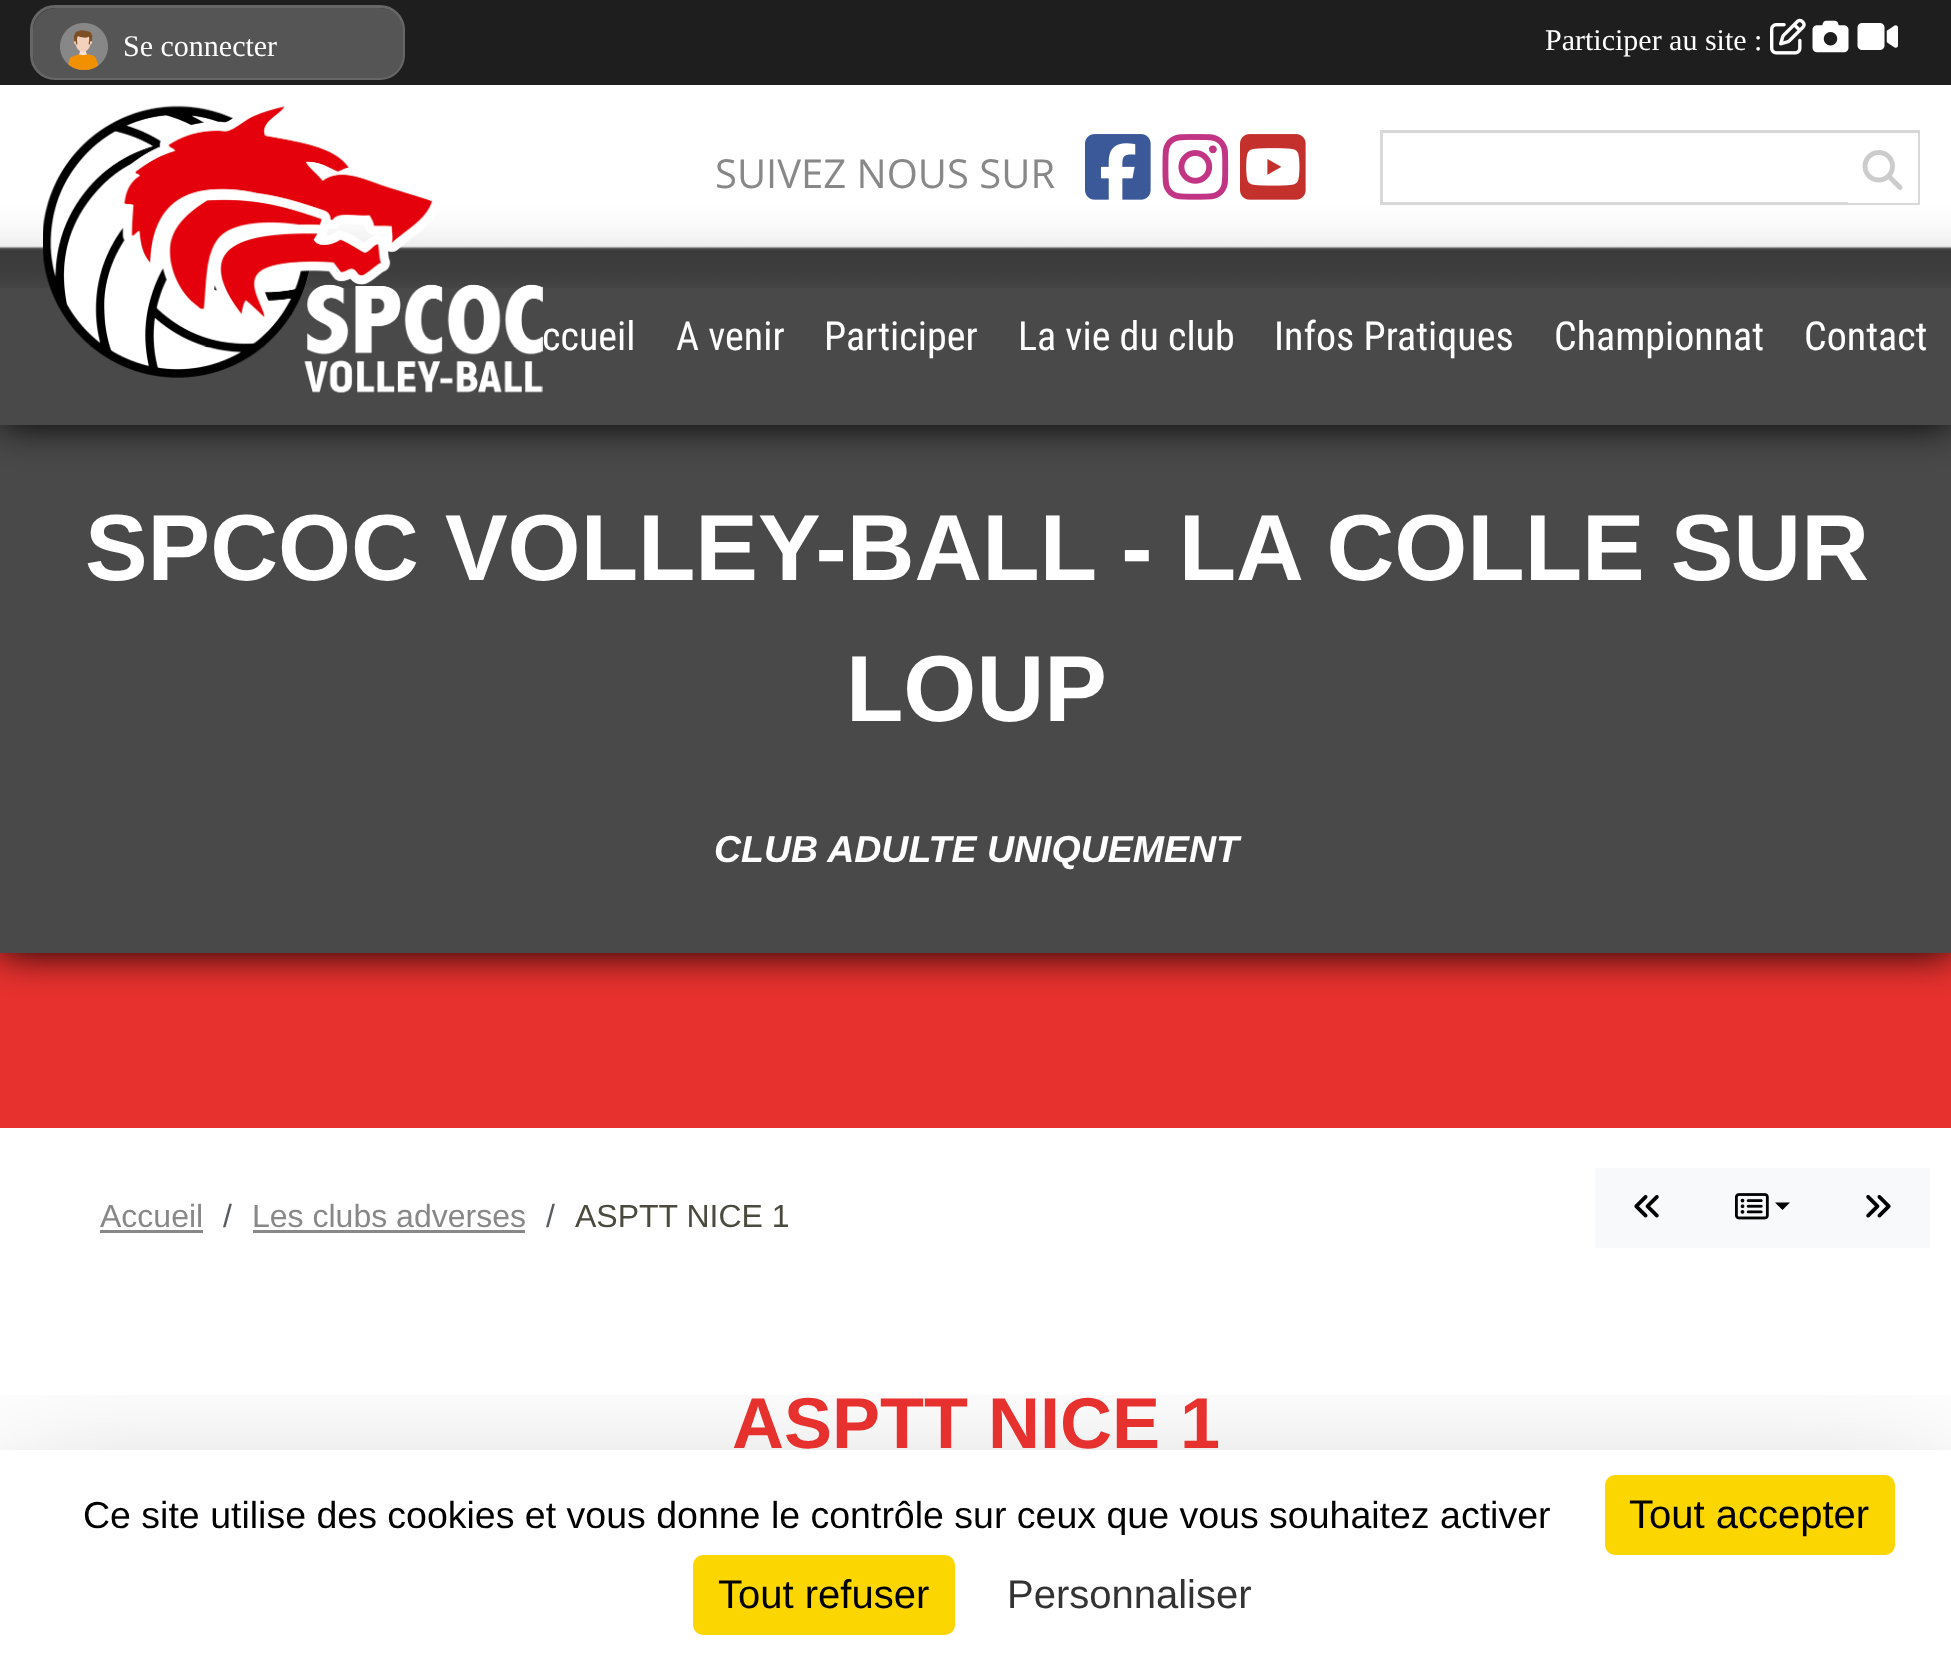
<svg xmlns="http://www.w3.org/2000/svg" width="1951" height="1660">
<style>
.a{font:30px Liberation Serif;fill:#fff}
.b{font:40px Open Sans;fill:#888}
.c{font:40px Roboto Condensed;fill:#fff}
.d{font:bold 93.9px Liberation Sans;fill:#fff}
.e{font:italic bold 37.5px Liberation Sans;fill:#fff}
.f{font:32px Liberation Sans;fill:#888}
.g{font:32px Liberation Sans;fill:#595c5f}
.h{font:32px Liberation Sans;fill:#4a4a3e}
.i{font:bold 72px Liberation Sans;fill:#e6312e}
.j{font:37.5px Liberation Sans;fill:#000}
.k{font:40px Liberation Sans;fill:#000}
.l{font:40px Liberation Sans;fill:#333}
</style>
<defs>
<clipPath id="clip1"><path d="M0 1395h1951v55H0z"/></clipPath>
<clipPath id="clip2"><path d="M58 1493h1517v42H58z"/></clipPath>
</defs>
<rect width="100%" height="100%" fill="#e6312e"/>
<path fill="#000" filter="blur(19px)" d="M0 425h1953v528H0z"/>
<path fill="#494949" d="M0 425h1951v528H0z"/>
<path fill="#000" filter="blur(19px)" d="M0 85h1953v340H0z"/>
<path fill="#1e1e1e" d="M0 0h1951v85H0z"/>
<rect fill="#333" stroke="#666" stroke-width="3" x="31.5" y="6.5" width="372" height="72" rx="23.5"/>
<rect fill="#555" x="33" y="8" width="370" height="70" rx="23"/>
<image href="1.png" x="60" y="23" width="48" height="47"/>
<image href="2.png" x="1770" y="18" width="36" height="37"/>
<image href="3.png" x="1812" y="20" width="37" height="33"/>
<image href="4.png" x="1857" y="23" width="41" height="27"/>
<path fill="#494949" d="M0 246h1951v179H0z"/>
<image href="5.png" x="0" y="85" width="1951" height="203"/>
<image href="6.png" x="43" y="105" width="500" height="288"/>
<image href="7.png" x="1085" y="134" width="66" height="66"/>
<image href="8.png" x="1162" y="134" width="67" height="66"/>
<image href="9.png" x="1240" y="134" width="66" height="66"/>
<path fill="none" stroke="#d8d8d8" stroke-width="3" d="M1381.5 131.5h537v72H1381.5z"/>
<path fill="#fff" d="M1848 133h70v70H1848z"/>
<image href="10.png" x="1862" y="150" width="41" height="40"/>
<path fill="#fff" d="M0 1128h1951v532H0z"/>
<path fill="#888" d="M100 1230h103v3H100z"/>
<path fill="#888" d="M253 1230h272v3H253z"/>
<path fill="#f8f9fa" d="M1595 1168h335v80H1595z"/>
<image href="11.png" x="1634" y="1195" width="25" height="23"/>
<image href="12.png" x="1735" y="1193" width="34" height="27"/>
<path fill="#000" d="M1775 1202.5h15l-7.5 7.5z"/>
<image href="13.png" x="1866" y="1195" width="25" height="23"/>
<g clip-path="url(#clip1)">
<path fill="#00000040" filter="blur(75px)" d="M0 1500h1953v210H0z"/>
</g>
<rect fill="#fbd600" x="1605" y="1475" width="290" height="80" rx="10"/>
<rect fill="#fbd600" x="693" y="1555" width="262" height="80" rx="10"/>
<text class="a" x="123" y="56">Se connecter</text>
<text class="a" x="1545" y="50">Participer au site :</text>
<text class="b" x="715" y="188">SUIVEZ NOUS SUR</text>
<text class="c" x="542" y="350">ccueil</text>
<text class="c" x="676" y="350">A venir</text>
<text class="c" x="824" y="350">Participer</text>
<text class="c" x="1018" y="350">La vie du club</text>
<text class="c" x="1274" y="350">Infos Pratiques</text>
<text class="c" x="1554" y="350">Championnat</text>
<text class="c" x="1804" y="350">Contact</text>
<text class="d" x="85" y="580">SPCOC VOLLEY-BALL - LA COLLE SUR</text>
<text class="d" x="846" y="721">LOUP</text>
<text class="e" x="714" y="862">CLUB ADULTE UNIQUEMENT</text>
<text class="f" x="100" y="1227">Accueil</text>
<text class="g" x="223" y="1227">/</text>
<text class="f" x="252" y="1227">Les clubs adverses</text>
<text class="g" x="546" y="1227">/</text>
<text class="h" x="575" y="1227">ASPTT NICE 1</text>
<text class="i" x="732" y="1448">ASPTT NICE 1</text>
<g clip-path="url(#clip2)">
<text class="j" x="83" y="1528">Ce site utilise des cookies et vous donne le contrôle sur ceux que vous souhaitez activer</text>
</g>
<text class="k" x="1629" y="1528">Tout accepter</text>
<text class="k" x="718" y="1608">Tout refuser</text>
<text class="l" x="1007" y="1608">Personnaliser</text>
</svg>
